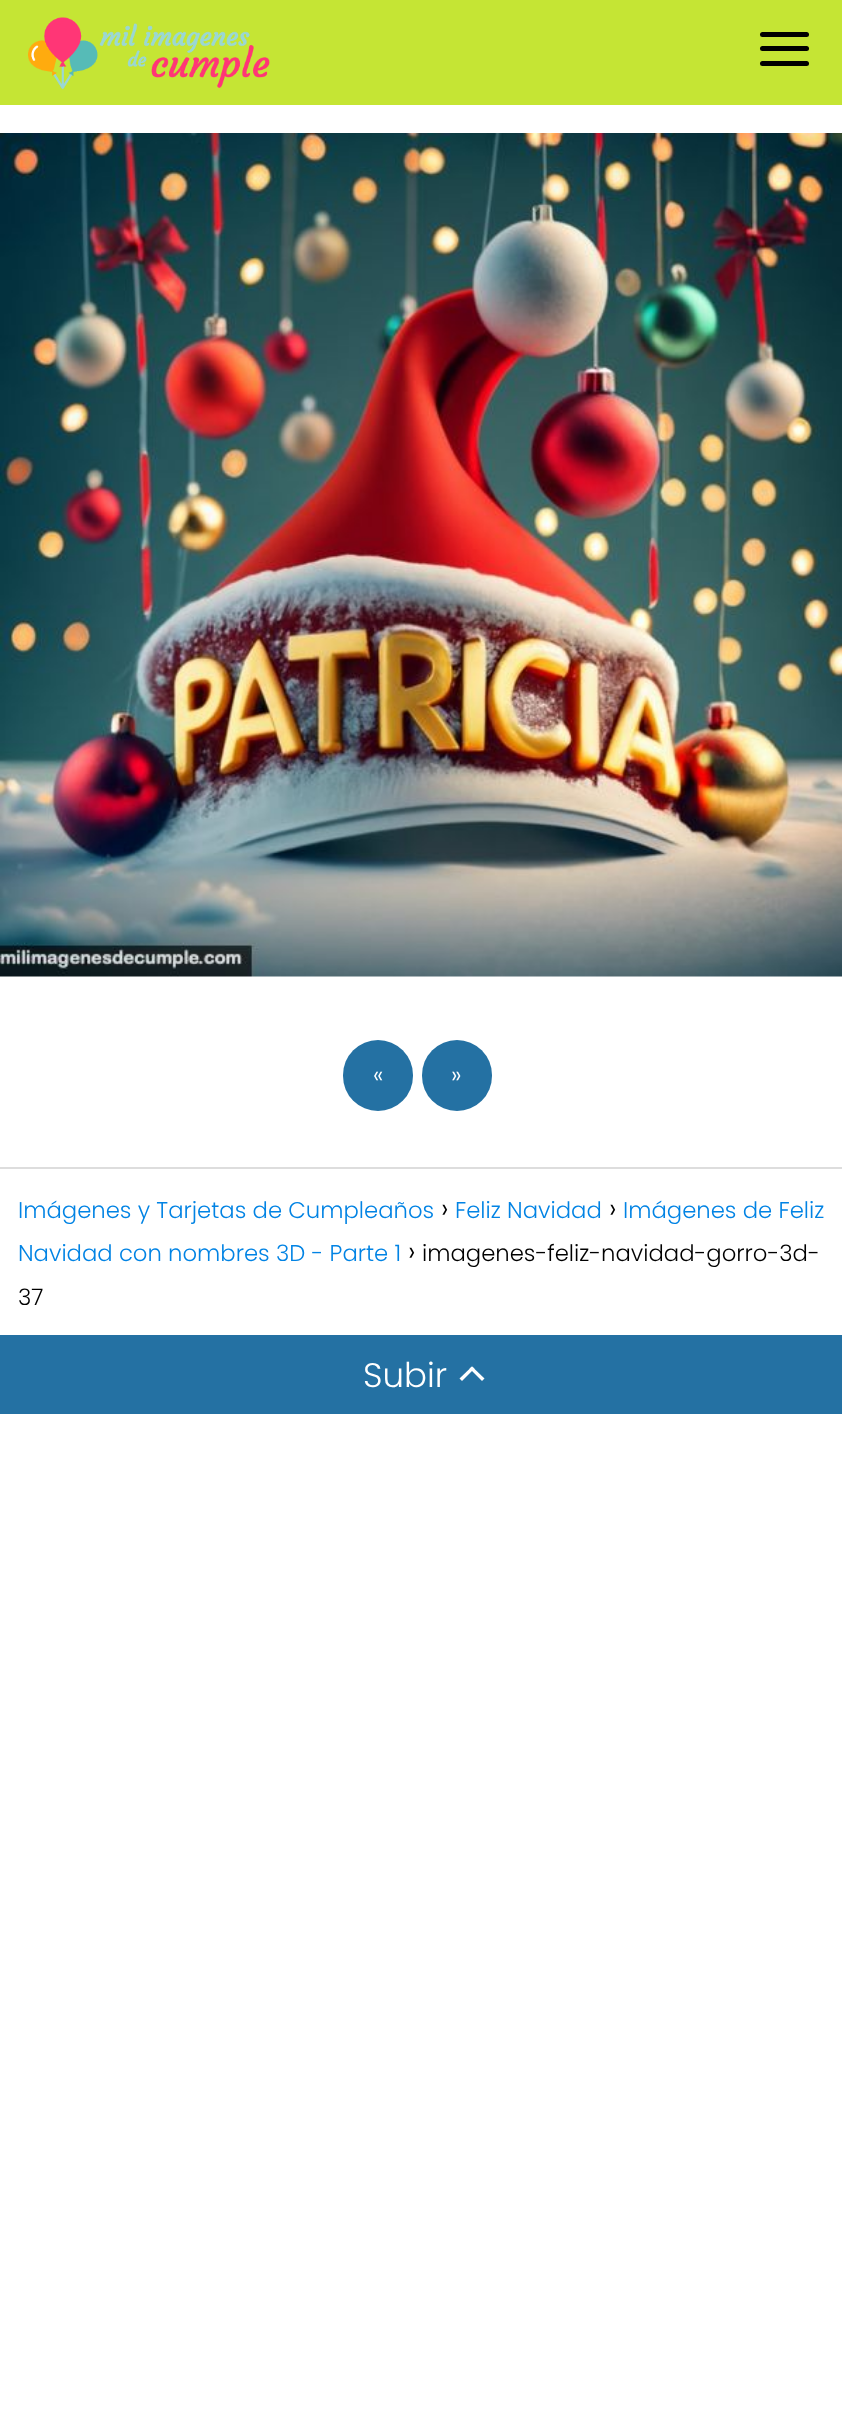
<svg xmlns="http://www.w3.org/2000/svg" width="842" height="2435">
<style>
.a{font:300 24px Poppins;fill:#fff}
.b{font:300 22.75px Poppins;fill:#0183e4}
.c{font:300 28px Poppins;fill:#000}
.d{font:300 22.75px Poppins;fill:#000}
.e{font:300 34px Poppins;fill:#fff}
</style>
<rect width="100%" height="100%" fill="#fff"/>
<path fill="#c5e534" d="M0 0h842v105H0z"/>
<image href="1.png" x="28" y="17" width="242" height="73"/>
<rect fill="#000" x="760" y="32" width="49" height="5" rx="2.5"/>
<rect fill="#000" x="760" y="46" width="49" height="5" rx="2.5"/>
<rect fill="#000" x="760" y="61" width="49" height="5" rx="2.5"/>
<image href="2.png" x="0" y="133" width="842" height="844"/>
<rect fill="#2471a3" x="343" y="1040" width="70" height="71" rx="35"/>
<rect fill="#2471a3" x="422" y="1040" width="70" height="71" rx="35"/>
<path fill="#ddd" d="M0 1167h842v2H0z"/>
<path fill="#2471a3" d="M0 1335h842v79H0z"/>
<path fill="#fff" d="M462 1381l-2.5-2.5l12.5-12l2.5 2z"/>
<path fill="#fff" d="M482 1381l-12.5-12.5l2.5-2l12.5 12z"/>
<text class="a" x="373" y="1083">«</text>
<text class="a" x="451" y="1083">»</text>
<text class="b" x="18" y="1218">Imágenes y Tarjetas de Cumpleaños</text>
<text class="c" x="441" y="1218">›</text>
<text class="b" x="455" y="1218">Feliz Navidad</text>
<text class="c" x="609" y="1218">›</text>
<text class="b" x="623" y="1218">Imágenes de Feliz</text>
<text class="b" x="18" y="1261">Navidad con nombres 3D - Parte 1</text>
<text class="c" x="408" y="1261">›</text>
<text class="d" x="422" y="1261">imagenes-feliz-navidad-gorro-3d-</text>
<text class="d" x="18" y="1305">37</text>
<text class="e" x="363" y="1387">Subir</text>
</svg>
